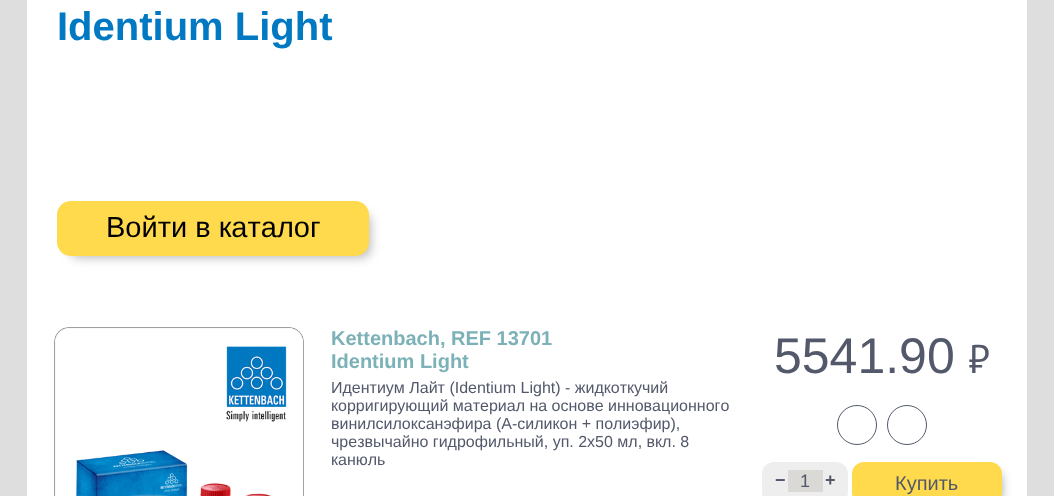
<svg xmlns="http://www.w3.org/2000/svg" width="1054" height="496">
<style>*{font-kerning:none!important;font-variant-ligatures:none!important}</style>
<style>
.a{font:bold 40px Liberation Sans;fill:#0079c2}
.b{font:29px Liberation Sans;fill:#000}
.c{font:bold 20px Liberation Sans;fill:#7bb1b7}
.d{font:50px Liberation Sans;fill:#53596b}
.e{font:italic bold 40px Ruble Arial;fill:#53596b}
.f{font:bold 18px Liberation Sans;fill:#53596b}
.g{font:18px Liberation Sans;fill:#53596b}
.h{font:20px Liberation Sans;fill:#53596b}
.i{font:16px Liberation Sans;fill:#53596b}
</style>
<rect width="100%" height="100%" fill="#dedede"/>
<path fill="#fff" d="M27 0h1000v496H27z"/>
<rect fill="#0000004d" filter="blur(5.5px)" x="70" y="214" width="300" height="43" rx="8"/>
<rect fill="#ffda4c" x="57" y="201" width="312" height="55" rx="14"/>
<image href="1.png" x="54" y="327" width="250" height="169"/>
<circle fill="none" stroke="#53596b" cx="857" cy="425" r="19.5"/>
<circle fill="none" stroke="#53596b" cx="907" cy="425" r="19.5"/>
<rect fill="#eee" x="762" y="462" width="86" height="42" rx="12"/>
<path fill="#dad9d5" d="M788 470h35v22H788z"/>
<rect fill="#00000066" filter="blur(5.5px)" x="863" y="473" width="138" height="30" rx="6"/>
<rect fill="#ffda4c" x="852" y="462" width="150" height="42" rx="12"/>
<text class="a" x="57" y="40">Identium Light</text>
<text class="b" x="106" y="237">Войти в каталог</text>
<text class="c" x="331" y="345">Kettenbach, REF 13701</text>
<text class="c" x="331" y="368">Identium Light</text>
<text class="d" x="774" y="373">5541.90</text>
<text class="e" x="968" y="373">руб.</text>
<text class="f" x="775" y="486">−</text>
<text class="g" x="800" y="487">1</text>
<text class="f" x="825" y="486">+</text>
<text class="h" x="895" y="490">Купить</text>
<text class="i" x="331" y="393">Идентиум Лайт (Identium Light) - жидкоткучий</text>
<text class="i" x="331" y="411">корригирующий материал на основе инновационного</text>
<text class="i" x="331" y="429">винилсилоксанэфира (А-силикон + полиэфир),</text>
<text class="i" x="331" y="447">чрезвычайно гидрофильный, уп. 2х50 мл, вкл. 8</text>
<text class="i" x="331" y="465">канюль</text>
</svg>
